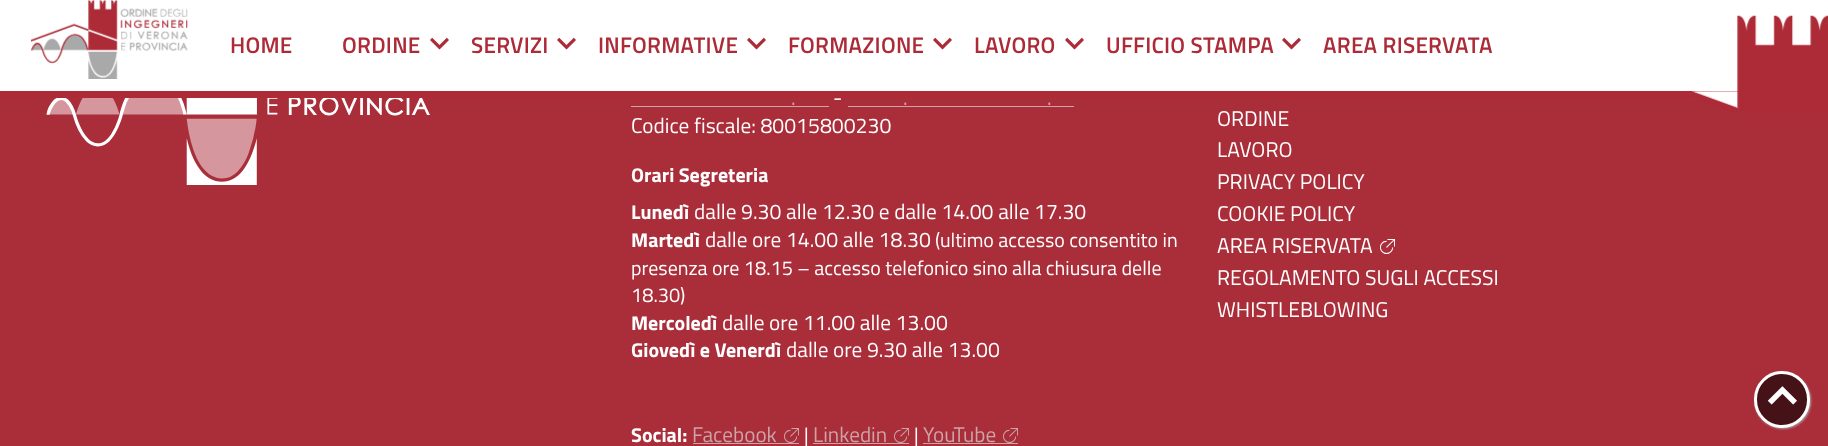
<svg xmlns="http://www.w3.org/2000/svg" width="1828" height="446">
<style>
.a{font:600 22.5px Titillium Web;letter-spacing:0.25px;fill:#ac2b37}
.b{font:19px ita;letter-spacing:0.25px;fill:#ac2b37}
.c{font:21.25px Titillium Web;fill:#fff}
.d{font:21.25px Titillium Web;fill:#cca4a8}
.e{font:bold 20px Titillium Web;fill:#fff}
.f{font:20px Titillium Web;fill:#fff}
.g{font:15px ita;fill:#cca4a8}
.h{font:15px ita;fill:#fff}
.i{font:bold 28px ita;fill:#fff}
</style>
<rect width="100%" height="100%" fill="#aa2d3a"/>
<path fill="#ac2b37" d="M0 91h1739v7H0z"/>
<path fill="#fff" d="M0 0h1828v91H0z"/>
<image href="1.png" x="31" y="0" width="157" height="79"/>
<image href="2.png" x="1691" y="15" width="137" height="98"/>
<image href="3.png" x="46" y="98" width="384" height="87"/>
<path fill="#cca4a8" d="M631 106h198v1H631z"/>
<path fill="#cca4a8" d="M848 106h226v1H848z"/>
<path fill="#cca4a8" d="M693 443h106v1H693z"/>
<path fill="#cca4a8" d="M813 443h96v1H813z"/>
<path fill="#cca4a8" d="M923 443h95v1H923z"/>
<rect fill="#aaa" filter="blur(1px)" x="1755" y="373" width="56" height="56" rx="28"/>
<rect fill="#451218" stroke="#fff" stroke-width="3" x="1755.5" y="372.5" width="53" height="54" rx="26.5"/>
<text class="a" x="230" y="53">HOME</text>
<text class="a" x="342" y="53">ORDINE</text>
<text class="b" x="430" y="52">⏶</text>
<text class="a" x="471" y="53">SERVIZI</text>
<text class="b" x="557" y="52">⏶</text>
<text class="a" x="598" y="53">INFORMATIVE</text>
<text class="b" x="747" y="52">⏶</text>
<text class="a" x="788" y="53">FORMAZIONE</text>
<text class="b" x="933" y="52">⏶</text>
<text class="a" x="974" y="53">LAVORO</text>
<text class="b" x="1065" y="52">⏶</text>
<text class="a" x="1106" y="53">UFFICIO STAMPA</text>
<text class="b" x="1282" y="52">⏶</text>
<text class="a" x="1323" y="53">AREA RISERVATA</text>
<text class="c" x="833" y="105">-</text>
<text class="d" x="791" y="105">.</text>
<text class="d" x="903" y="105">.</text>
<text class="d" x="1047" y="105">.</text>
<text class="c" x="631" y="133">Codice fiscale: 80015800230</text>
<text class="e" x="631" y="182">Orari Segreteria</text>
<text class="e" x="631" y="219">Lunedì</text>
<text class="c" x="694" y="219">dalle 9.30 alle 12.30 e dalle 14.00 alle 17.30</text>
<text class="e" x="631" y="247">Martedì</text>
<text class="c" x="705" y="247">dalle ore 14.00 alle 18.30</text>
<text class="f" x="935" y="247">(ultimo accesso consentito in</text>
<text class="f" x="631" y="275">presenza ore 18.15 – accesso telefonico sino alla chiusura delle</text>
<text class="f" x="631" y="302">18.30)</text>
<text class="e" x="631" y="330">Mercoledì</text>
<text class="c" x="722" y="330">dalle ore 11.00 alle 13.00</text>
<text class="e" x="631" y="357">Giovedì e Venerdì</text>
<text class="c" x="786" y="357">dalle ore 9.30 alle 13.00</text>
<text class="e" x="631" y="442">Social:</text>
<text class="d" x="692" y="442">Facebook</text>
<text class="g" x="784" y="442">🖝</text>
<text class="f" x="804" y="442">|</text>
<text class="d" x="813" y="442">Linkedin</text>
<text class="g" x="894" y="442">🖝</text>
<text class="f" x="914" y="442">|</text>
<text class="d" x="923" y="442">YouTube</text>
<text class="g" x="1003" y="442">🖝</text>
<text class="c" x="1217" y="126">ORDINE</text>
<text class="c" x="1217" y="157">LAVORO</text>
<text class="c" x="1217" y="189">PRIVACY POLICY</text>
<text class="c" x="1217" y="221">COOKIE POLICY</text>
<text class="c" x="1217" y="253">AREA RISERVATA</text>
<text class="h" x="1380" y="253">🖝</text>
<text class="c" x="1217" y="285">REGOLAMENTO SUGLI ACCESSI</text>
<text class="c" x="1217" y="317">WHISTLEBLOWING</text>
<text class="i" x="1768" y="408">⏷</text>
</svg>
